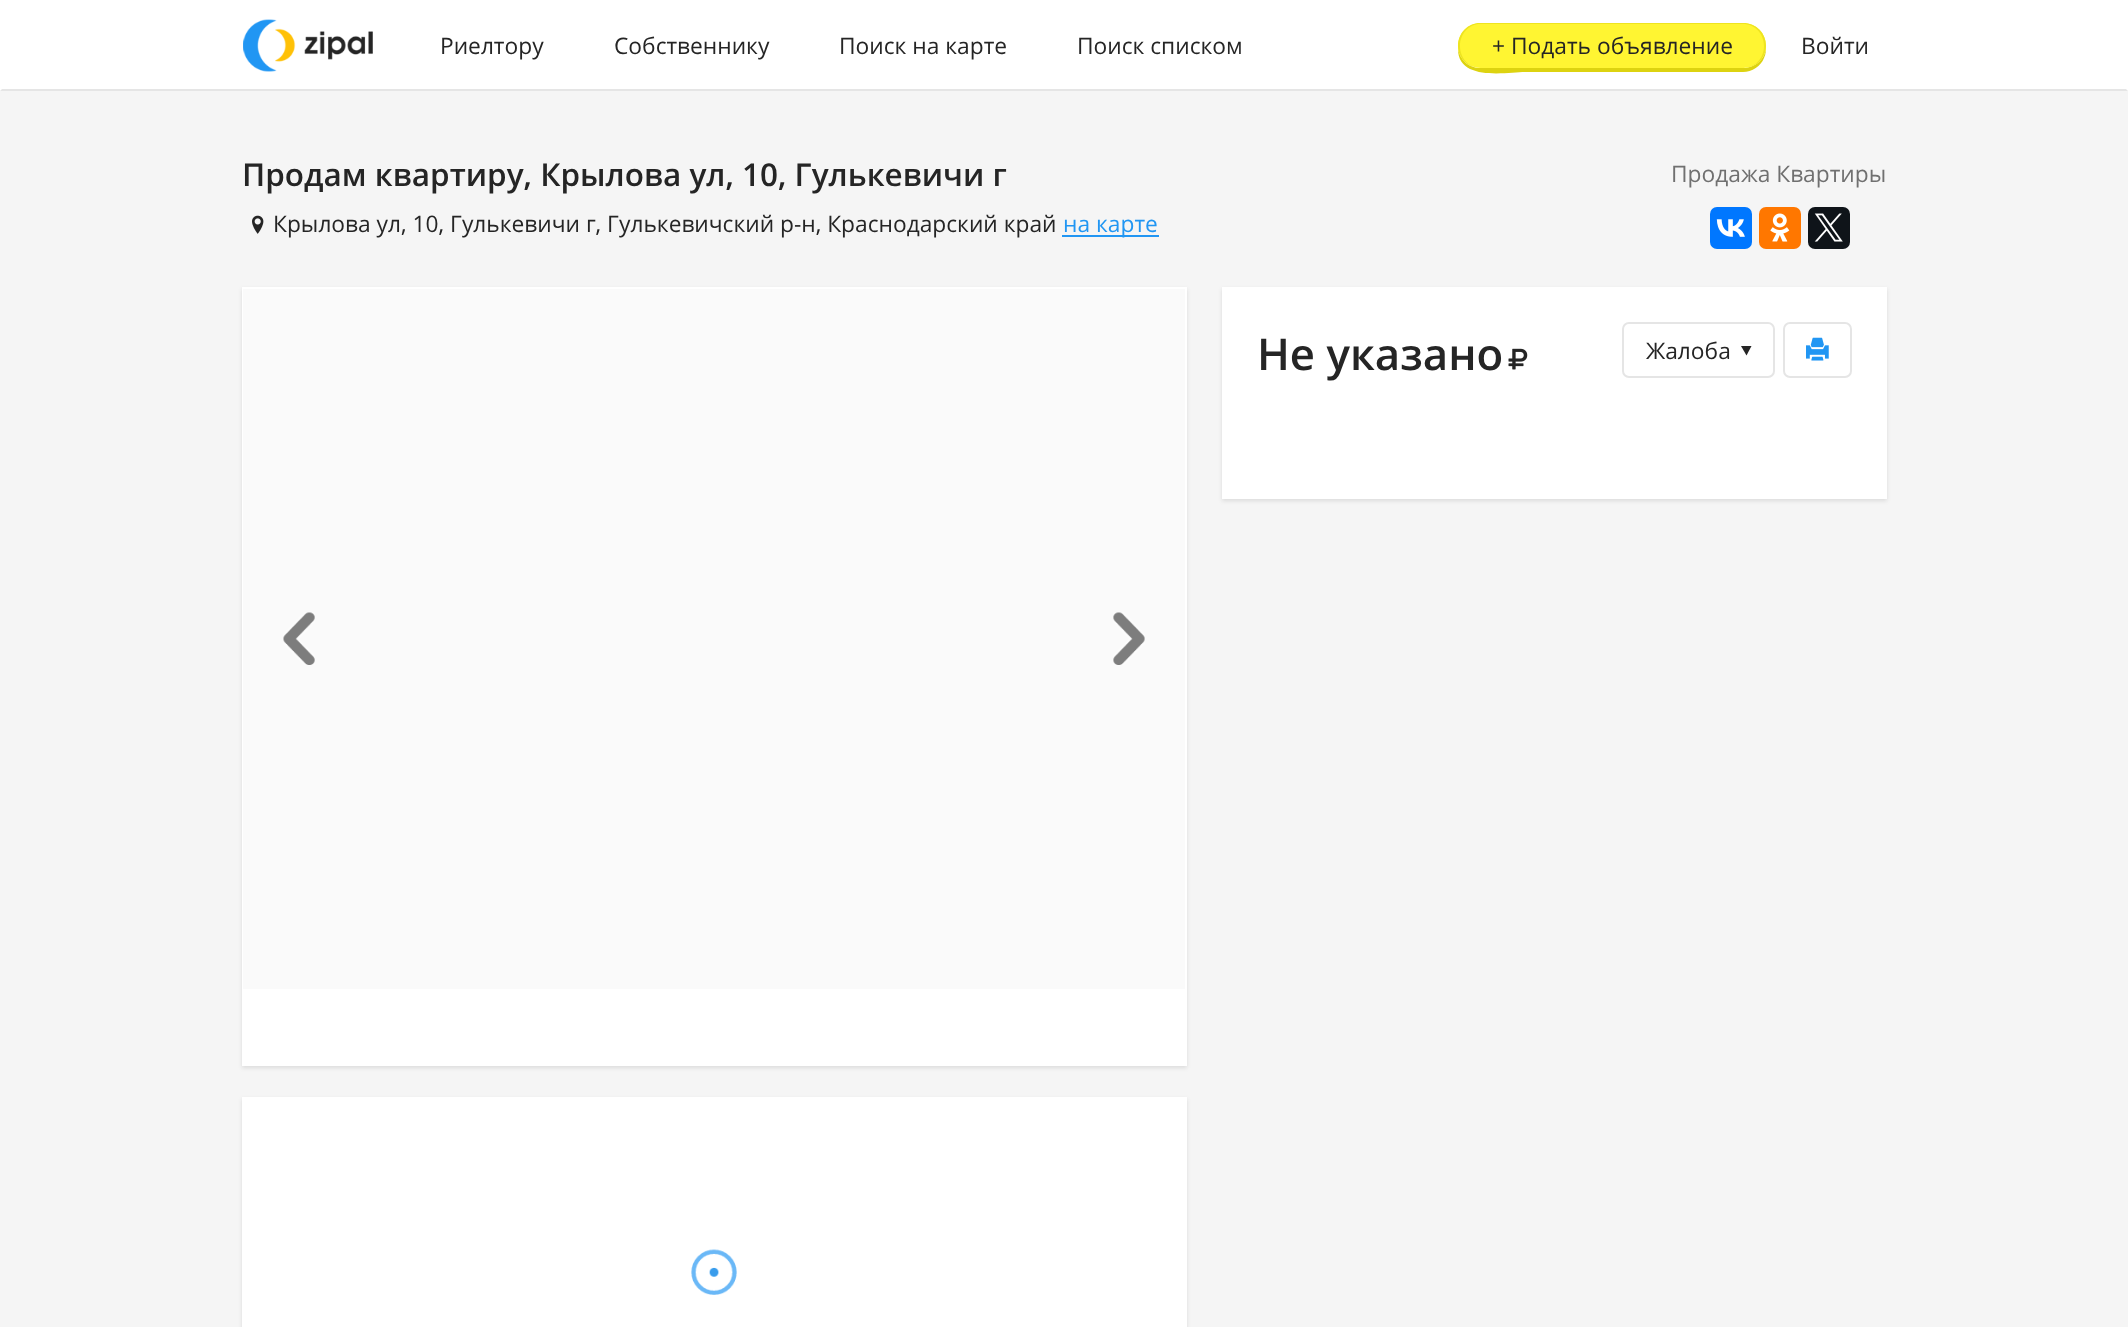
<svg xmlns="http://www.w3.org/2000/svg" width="2128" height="1327">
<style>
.a{font:22.75px Open Sans;fill:#252525}
.b{font:600 31.5px Open Sans;fill:#252525}
.c{font:22.75px Open Sans;fill:#707070}
.d{font:22.75px Open Sans;fill:#2196f3}
.e{font:600 43.75px Open Sans;fill:#252525}
</style>
<rect width="100%" height="100%" fill="#f5f5f5"/>
<path fill="#fff" d="M0 0h2128v91H0z"/>
<path fill="#e5e5e5" d="M2128 91h-2128l2-2h2124z"/>
<image href="1.png" x="243" y="19" width="130" height="53"/>
<path fill="#ddd310" d="M1458 49c0 33 50 23 67 23h218c9 0 18-6 21-14c2-4 2-8 2-12c0 12-10 22-23 22h-263c-11 0-20-8-22-19z"/>
<rect fill="#fff532" x="1458" y="23" width="308" height="45" rx="22.5"/>
<path fill="#eee421" fill-rule="evenodd" d="M1480 23h263c13 0 23 10 23 23c0 12-10 22-23 22h-263c-12 0-22-10-22-22c0-13 10-23 22-23zm0 1h263c12 0 21 10 21 22c0 12-9 22-21 22h-263c-11 0-20-10-20-22c0-12 9-22 20-22z"/>
<rect fill="#07f" x="1710" y="207" width="42" height="42" rx="7"/>
<image href="2.png" x="1716" y="219" width="29" height="18"/>
<rect fill="#f70" x="1759" y="207" width="42" height="42" rx="7"/>
<image href="3.png" x="1770" y="213" width="20" height="29"/>
<rect fill="#0f1419" x="1808" y="207" width="42" height="42" rx="7"/>
<image href="4.png" x="1814" y="213" width="29" height="29"/>
<image href="5.png" x="252" y="215" width="12" height="19"/>
<path fill="#2196f3" d="M1062 235h97v2H1062z"/>
<path fill="#0000001a" filter="blur(2px)" d="M242 289h945v779H242z"/>
<path fill="#fff" d="M242 287h945v779H242z"/>
<path fill="#fafafa" d="M243 289h942v700H243z"/>
<image href="6.png" x="283" y="612" width="32" height="53"/>
<image href="7.png" x="1113" y="612" width="32" height="53"/>
<path fill="#0000001a" filter="blur(2px)" d="M242 1099h945v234H242z"/>
<path fill="#fff" d="M242 1097h945v230H242z"/>
<image href="8.png" x="691" y="1249" width="46" height="46"/>
<path fill="#0000001a" filter="blur(2px)" d="M1222 289h665v212H1222z"/>
<path fill="#fff" d="M1222 287h665v212H1222z"/>
<image href="9.png" x="1508" y="348" width="20" height="22"/>
<rect fill="none" stroke="#e5e5e5" stroke-width="2" x="1623" y="323" width="151" height="54" rx="6"/>
<path fill="#252525" d="M1751.5 346l-5 9.5l-5.5-9.5z"/>
<rect fill="none" stroke="#e5e5e5" stroke-width="2" x="1784" y="323" width="67" height="54" rx="6"/>
<image href="10.png" x="1806" y="337" width="23" height="24"/>
<text class="a" x="440" y="54">Риелтору</text>
<text class="a" x="614" y="54">Собственнику</text>
<text class="a" x="839" y="54">Поиск на карте</text>
<text class="a" x="1077" y="54">Поиск списком</text>
<text class="a" x="1492" y="54">+ Подать объявление</text>
<text class="a" x="1801" y="54">Войти</text>
<text class="b" x="242" y="186">Продам квартиру, Крылова ул, 10, Гулькевичи г</text>
<text class="c" x="1671" y="182">Продажа Квартиры</text>
<text class="a" x="273" y="232">Крылова ул, 10, Гулькевичи г, Гулькевичский р-н, Краснодарский край</text>
<text class="d" x="1063" y="232">на карте</text>
<text class="e" x="1257" y="370">Не указано</text>
<text class="a" x="1646" y="359">Жалоба</text>
</svg>
